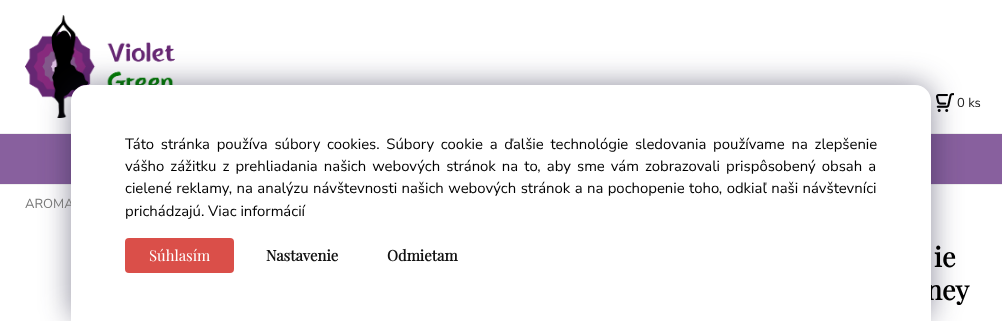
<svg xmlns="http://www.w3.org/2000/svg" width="1002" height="321">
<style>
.a{font:200 13px Nunito Sans;fill:#202020}
.b{font:200 13px Nunito Sans;fill:#777}
.c{font:bold 27px Playfair Display;fill:#000}
.d{font:200 14.88px Nunito Sans;fill:#000}
.e{font:14.88px Playfair Display;fill:#fff}
.f{font:bold 14.88px Playfair Display;fill:#111}
</style>
<rect width="100%" height="100%" fill="#fff"/>
<image href="1.png" x="25" y="15" width="150" height="103"/>
<path fill="#88609e" d="M0 134h1002v50H0z"/>
<path fill="#f0f0f0" d="M0 133h1002v1H0z"/>
<path fill="#f0f0f0" d="M0 184h1002v1H0z"/>
<image href="2.png" x="936" y="93" width="18" height="19"/>
<rect fill="#1b193980" filter="blur(15px)" x="71" y="85" width="860" height="236" rx="16"/>
<text class="a" x="957" y="107">0 ks</text>
<text class="b" x="25" y="208">AROMA</text>
<text class="c" x="934" y="267">ie</text>
<text class="c" x="926" y="300">ney</text>
<path fill="#fff" d="M87 85h828c9 0 16 7 16 16v220h-860v-220c0-9 7-16 16-16z"/>
<text class="d" x="125" y="149" word-spacing="2.9">Táto stránka používa súbory cookies. Súbory cookie a ďalšie technológie sledovania používame na zlepšenie</text>
<text class="d" x="125" y="171" word-spacing="2.25">vášho zážitku z prehliadania našich webových stránok na to, aby sme vám zobrazovali prispôsobený obsah a</text>
<text class="d" x="125" y="193" word-spacing="0.6">cielené reklamy, na analýzu návštevnosti našich webových stránok a na pochopenie toho, odkiaľ naši návštevníci</text>
<text class="d" x="125" y="216">prichádzajú. Viac informácií</text>
<rect fill="#da4f49" x="125" y="238" width="109" height="35" rx="4"/>
<text class="e" x="149" y="261">Súhlasím</text>
<text class="f" x="266" y="261">Nastavenie</text>
<text class="f" x="387" y="261">Odmietam</text>
</svg>
